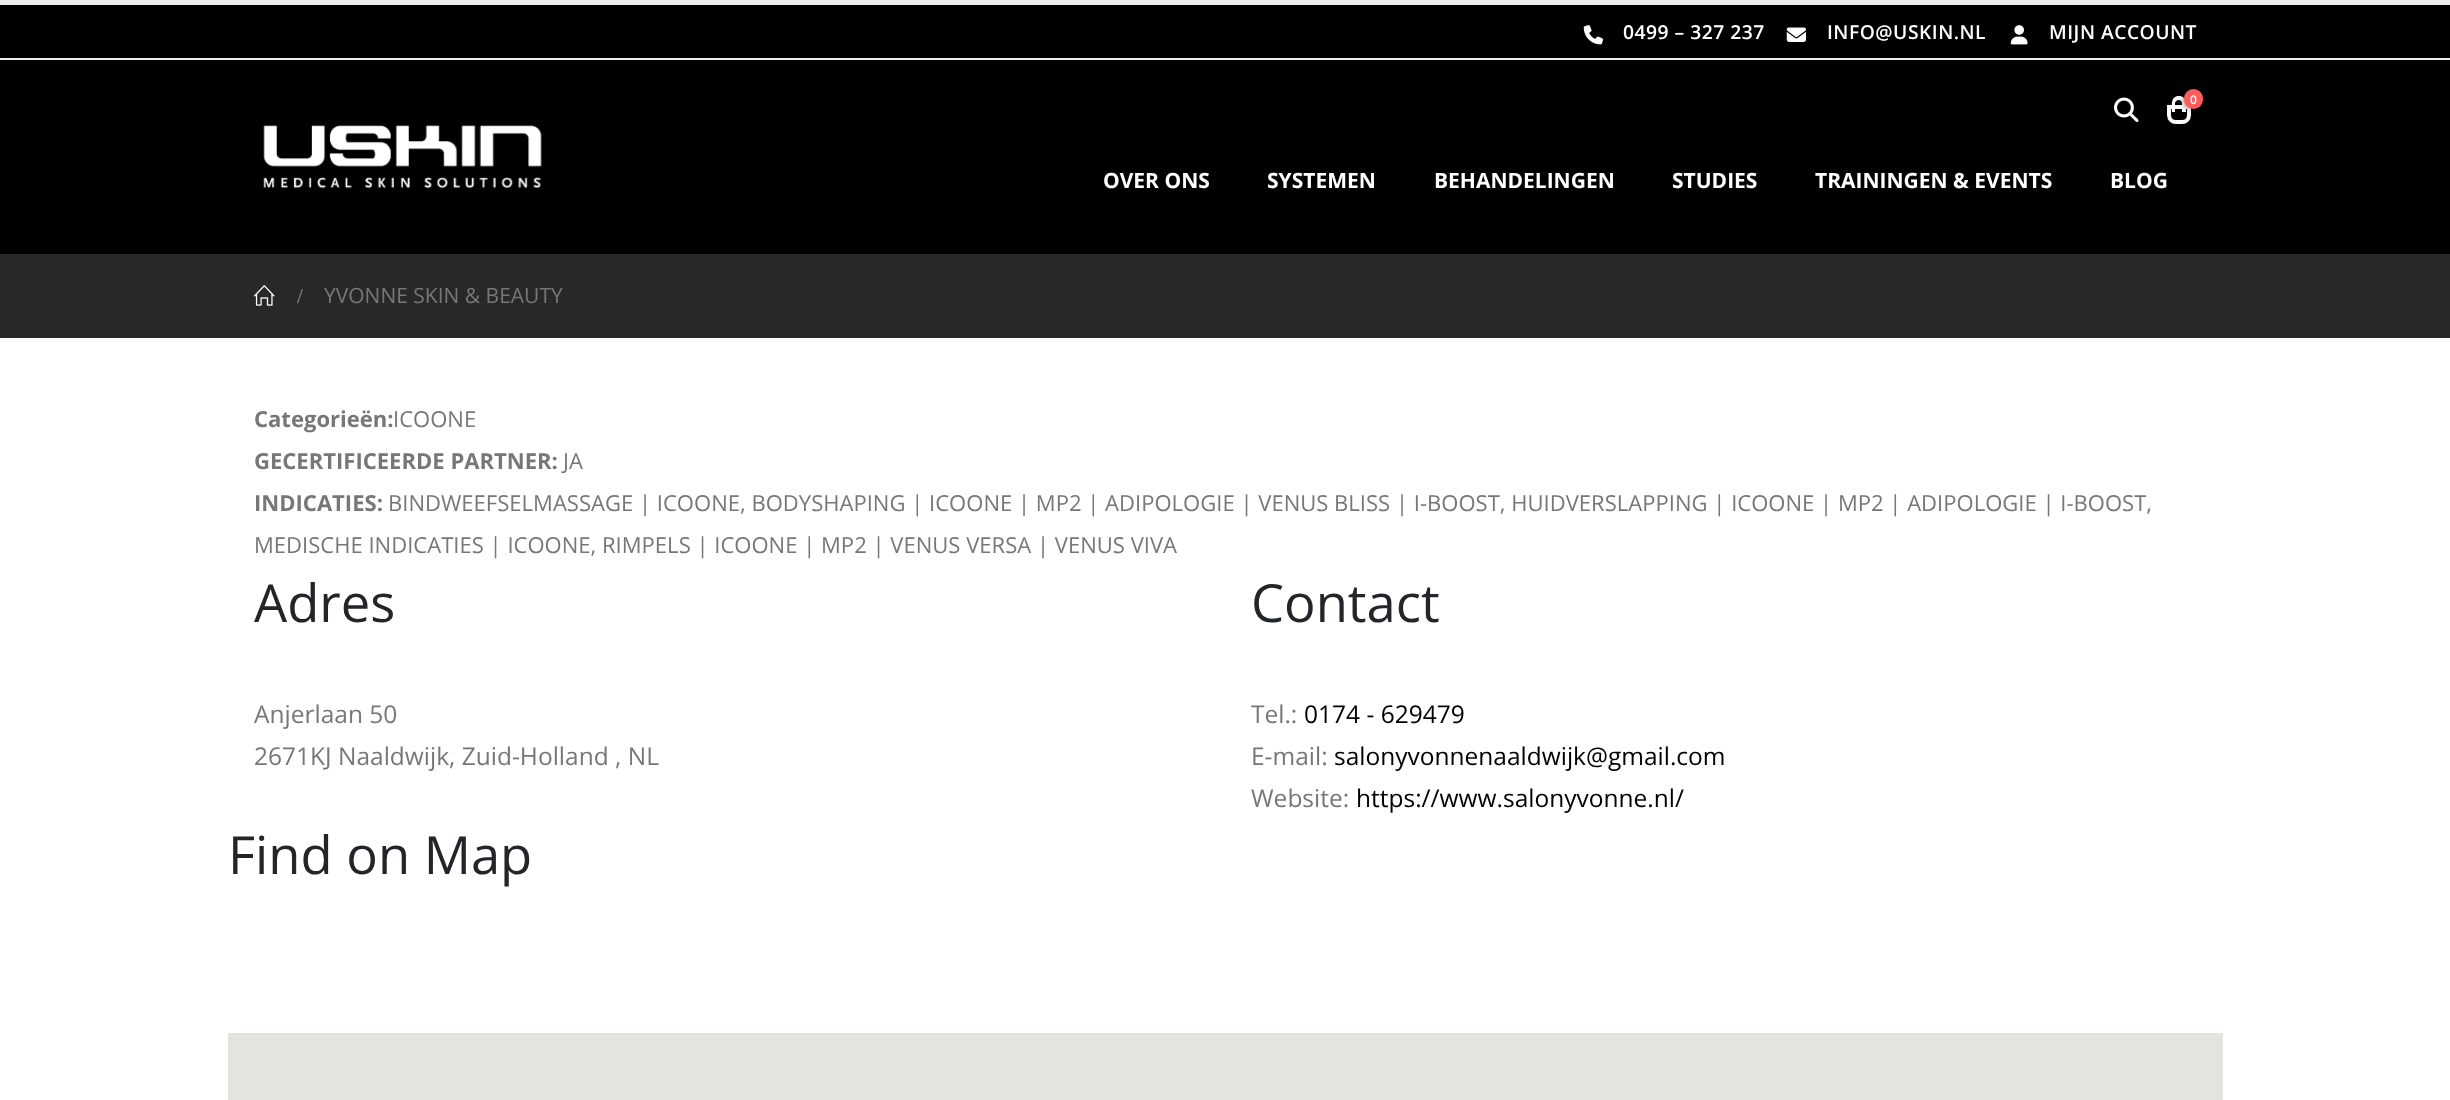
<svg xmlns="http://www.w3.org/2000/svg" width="2450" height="1100">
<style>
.a{font:600 19.25px Open Sans;letter-spacing:0.5px;fill:#fff}
.b{font:600 12px Open Sans;fill:#fff}
.c{font:bold 21px Open Sans;fill:#fff}
.d{font:bold 21px Liberation Serif;fill:#777}
.e{font:21px Open Sans;fill:#777}
.f{font:bold 22.05px Open Sans;fill:#777}
.g{font:22.05px Open Sans;fill:#777}
.h{font:52.5px Open Sans;fill:#222529}
.i{font:24.5px Open Sans;fill:#777}
.j{font:24.5px Open Sans;fill:#000}
</style>
<rect width="100%" height="100%" fill="#fff"/>
<path fill="#000" d="M0 5h2450v249H0z"/>
<path fill="#ededed" d="M0 0h2450v5H0z"/>
<path fill="#ededed" d="M0 58h2450v2H0z"/>
<image href="1.png" x="1583" y="25" width="20" height="20"/>
<image href="2.png" x="1786" y="27" width="20" height="15"/>
<image href="3.png" x="2010" y="25" width="18" height="20"/>
<image href="4.png" x="263" y="125" width="279" height="64"/>
<image href="5.png" x="2114" y="97" width="25" height="25"/>
<path fill="none" stroke="#fff" stroke-width="4" d="M2169 107h20v8c0 4-3 7-7 7h-6c-4 0-7-3-7-7z"/>
<path fill="#fff" fill-rule="evenodd" d="M2179 96c8.5 0 7 10.5 7 16h-14c0-5.5-2-16 7-16zm0 4c1.5 0 3 1.5 3 3v9h-7v-9c0-1.5 2-3 4-3z"/>
<rect fill="#0000004d" filter="blur(2px)" x="2182" y="91" width="20" height="19" rx="9.5"/>
<rect fill="#ff5b5b" x="2184" y="89" width="19" height="20" rx="9.5"/>
<path fill="#282828" d="M0 254h2450v84H0z"/>
<image href="6.png" x="254" y="285" width="21" height="21"/>
<path fill="#e5e3df" d="M228 1033h1995v67H228z"/>
<text class="a" x="1623" y="39">0499 – 327 237</text>
<text class="a" x="1827" y="39">INFO@USKIN.NL</text>
<text class="a" x="2049" y="39">MIJN ACCOUNT</text>
<text class="b" x="2190" y="104">0</text>
<text class="c" x="1103" y="188">OVER ONS</text>
<text class="c" x="1267" y="188">SYSTEMEN</text>
<text class="c" x="1434" y="188">BEHANDELINGEN</text>
<text class="c" x="1672" y="188">STUDIES</text>
<text class="c" x="1815" y="188">TRAININGEN &amp; EVENTS</text>
<text class="c" x="2110" y="188">BLOG</text>
<text class="d" x="297" y="303">/</text>
<text class="e" x="324" y="303">YVONNE SKIN &amp; BEAUTY</text>
<text class="f" x="254" y="427">Categorieën:</text>
<text class="g" x="393" y="427">ICOONE</text>
<text class="f" x="254" y="469">GECERTIFICEERDE PARTNER:</text>
<text class="g" x="563" y="469">JA</text>
<text class="f" x="254" y="511">INDICATIES:</text>
<text class="g" x="388" y="511">BINDWEEFSELMASSAGE | ICOONE, BODYSHAPING | ICOONE | MP2 | ADIPOLOGIE | VENUS BLISS | I-BOOST, HUIDVERSLAPPING | ICOONE | MP2 | ADIPOLOGIE | I-BOOST,</text>
<text class="g" x="254" y="553">MEDISCHE INDICATIES | ICOONE, RIMPELS | ICOONE | MP2 | VENUS VERSA | VENUS VIVA</text>
<text class="h" x="254" y="622">Adres</text>
<text class="i" x="254" y="723">Anjerlaan 50</text>
<text class="i" x="254" y="765">2671KJ Naaldwijk, Zuid-Holland , NL</text>
<text class="h" x="1251" y="622">Contact</text>
<text class="i" x="1251" y="723">Tel.:</text>
<text class="j" x="1304" y="723">0174 - 629479</text>
<text class="i" x="1251" y="765">E-mail:</text>
<text class="j" x="1334" y="765">salonyvonnenaaldwijk@gmail.com</text>
<text class="i" x="1251" y="807">Website:</text>
<text class="j" x="1356" y="807">https://www.salonyvonne.nl/</text>
<text class="h" x="228" y="874">Find on Map</text>
</svg>
